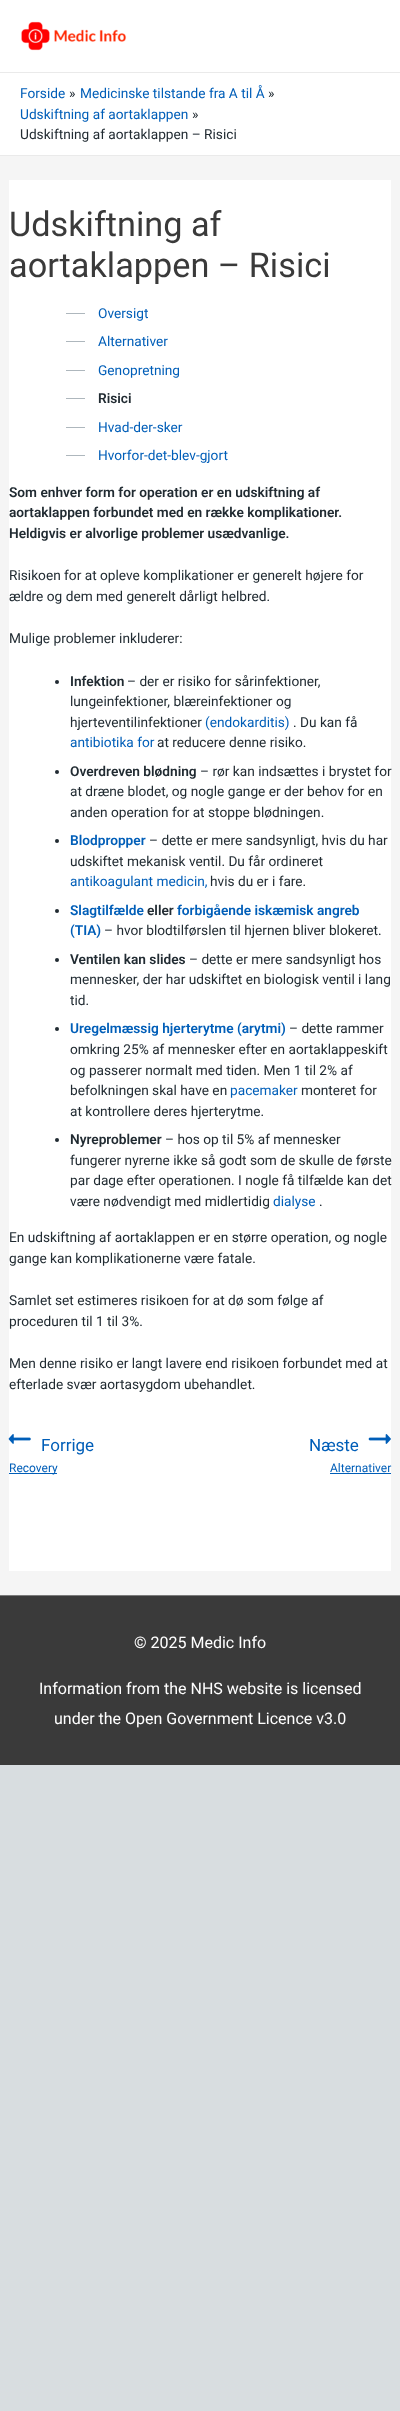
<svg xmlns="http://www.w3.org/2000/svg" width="400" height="2411">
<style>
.a{font:13.7px Roboto;fill:#005eb8}
.b{font:13.7px Roboto;fill:#212b32}
.c{font:34.25px Roboto;fill:#3a3a3a}
.d{font:600 13.7px Roboto;fill:#212b32}
.e{font:600 13.7px Roboto;fill:#005eb8}
.f{font:17px Roboto;fill:#005eb8}
.g{font:12px Roboto;fill:#005eb8}
.h{font:16px Roboto;fill:#fff}
</style>
<rect width="100%" height="100%" fill="#d8dde0"/>
<path fill="#f5f5f5" d="M0 156h400v1439H0z"/>
<path fill="#fff" d="M0 0h400v72H0z"/>
<path fill="#eaeaea" d="M0 72h400v1H0z"/>
<image href="1.png" x="21" y="21" width="106" height="30"/>
<path fill="#fff" d="M0 73h400v82H0z"/>
<path fill="#eaeaea" d="M0 155h400v1H0z"/>
<path fill="#fff" d="M9 180h382v1391H9z"/>
<path fill="#aeb7bd" d="M66 313h19v1H66z"/>
<path fill="#aeb7bd" d="M66 341h19v1H66z"/>
<path fill="#aeb7bd" d="M66 370h19v1H66z"/>
<path fill="#aeb7bd" d="M66 398h19v1H66z"/>
<path fill="#aeb7bd" d="M66 427h19v1H66z"/>
<path fill="#aeb7bd" d="M66 455h19v1H66z"/>
<circle fill="#212b32" cx="57" cy="682" r="2"/>
<circle fill="#212b32" cx="57" cy="772" r="2"/>
<circle fill="#212b32" cx="57" cy="841" r="2"/>
<circle fill="#212b32" cx="57" cy="911" r="2"/>
<circle fill="#212b32" cx="57" cy="960" r="2"/>
<circle fill="#212b32" cx="57" cy="1029" r="2"/>
<circle fill="#212b32" cx="57" cy="1140" r="2"/>
<image href="2.png" x="8" y="1434" width="23" height="10"/>
<path fill="#005eb8" d="M9 1473h48v1H9z"/>
<image href="3.png" x="368" y="1434" width="23" height="10"/>
<path fill="#005eb8" d="M330 1473h61v1H330z"/>
<path fill="#7a7a7a" d="M0 1595h400v1H0z"/>
<path fill="#3a3a3a" d="M0 1596h400v169H0z"/>
<text class="a" x="20" y="98">Forside</text>
<text class="b" x="69" y="98">»</text>
<text class="a" x="80" y="98">Medicinske tilstande fra A til Å</text>
<text class="b" x="268" y="98">»</text>
<text class="a" x="20" y="119">Udskiftning af aortaklappen</text>
<text class="b" x="192" y="119">»</text>
<text class="b" x="20" y="139">Udskiftning af aortaklappen – Risici</text>
<text class="c" x="9" y="236">Udskiftning af</text>
<text class="c" x="9" y="277">aortaklappen – Risici</text>
<text class="a" x="98" y="318">Oversigt</text>
<text class="a" x="98" y="346">Alternativer</text>
<text class="a" x="98" y="375">Genopretning</text>
<text class="d" x="98" y="403">Risici</text>
<text class="a" x="98" y="432">Hvad-der-sker</text>
<text class="a" x="98" y="460">Hvorfor-det-blev-gjort</text>
<text class="d" x="9" y="497">Som enhver form for operation er en udskiftning af</text>
<text class="d" x="9" y="517">aortaklappen forbundet med en række komplikationer.</text>
<text class="d" x="9" y="538">Heldigvis er alvorlige problemer usædvanlige.</text>
<text class="b" x="9" y="580">Risikoen for at opleve komplikationer er generelt højere for</text>
<text class="b" x="9" y="601">ældre og dem med generelt dårligt helbred.</text>
<text class="b" x="9" y="643">Mulige problemer inkluderer:</text>
<text class="d" x="70" y="686">Infektion</text>
<text class="b" x="127" y="686">– der er risiko for sårinfektioner,</text>
<text class="b" x="70" y="706">lungeinfektioner, blæreinfektioner og</text>
<text class="b" x="70" y="727">hjerteventilinfektioner</text>
<text class="a" x="205" y="727">(endokarditis)</text>
<text class="b" x="293" y="727">. Du kan få</text>
<text class="a" x="70" y="747">antibiotika for</text>
<text class="b" x="157" y="747">at reducere denne risiko.</text>
<text class="d" x="70" y="776">Overdreven blødning</text>
<text class="b" x="200" y="776">– rør kan indsættes i brystet for</text>
<text class="b" x="70" y="796">at dræne blodet, og nogle gange er der behov for en</text>
<text class="b" x="70" y="817">anden operation for at stoppe blødningen.</text>
<text class="e" x="70" y="845">Blodpropper</text>
<text class="b" x="149" y="845">– dette er mere sandsynligt, hvis du har</text>
<text class="b" x="70" y="866">udskiftet mekanisk ventil. Du får ordineret</text>
<text class="a" x="70" y="886">antikoagulant medicin,</text>
<text class="b" x="210" y="886">hvis du er i fare.</text>
<text class="e" x="70" y="915">Slagtilfælde</text>
<text class="d" x="147" y="915">eller</text>
<text class="e" x="177" y="915">forbigående iskæmisk angreb</text>
<text class="e" x="70" y="935">(TIA)</text>
<text class="b" x="104" y="935">– hvor blodtilførslen til hjernen bliver blokeret.</text>
<text class="d" x="70" y="964">Ventilen kan slides</text>
<text class="b" x="189" y="964">– dette er mere sandsynligt hos</text>
<text class="b" x="70" y="984">mennesker, der har udskiftet en biologisk ventil i lang</text>
<text class="b" x="70" y="1005">tid.</text>
<text class="e" x="70" y="1033">Uregelmæssig hjerterytme (arytmi)</text>
<text class="b" x="289" y="1033">– dette rammer</text>
<text class="b" x="70" y="1054">omkring 25% af mennesker efter en aortaklappeskift</text>
<text class="b" x="70" y="1075">og passerer normalt med tiden. Men 1 til 2% af</text>
<text class="b" x="70" y="1095">befolkningen skal have en</text>
<text class="a" x="230" y="1095">pacemaker</text>
<text class="b" x="301" y="1095">monteret for</text>
<text class="b" x="70" y="1116">at kontrollere deres hjerterytme.</text>
<text class="d" x="70" y="1144">Nyreproblemer</text>
<text class="b" x="165" y="1144">– hos op til 5% af mennesker</text>
<text class="b" x="70" y="1165">fungerer nyrerne ikke så godt som de skulle de første</text>
<text class="b" x="70" y="1185">par dage efter operationen. I nogle få tilfælde kan det</text>
<text class="b" x="70" y="1206">være nødvendigt med midlertidig</text>
<text class="a" x="273" y="1206">dialyse</text>
<text class="b" x="319" y="1206">.</text>
<text class="b" x="9" y="1242">En udskiftning af aortaklappen er en større operation, og nogle</text>
<text class="b" x="9" y="1263">gange kan komplikationerne være fatale.</text>
<text class="b" x="9" y="1305">Samlet set estimeres risikoen for at dø som følge af</text>
<text class="b" x="9" y="1326">proceduren til 1 til 3%.</text>
<text class="b" x="9" y="1368">Men denne risiko er langt lavere end risikoen forbundet med at</text>
<text class="b" x="9" y="1389">efterlade svær aortasygdom ubehandlet.</text>
<text class="f" x="41" y="1451">Forrige</text>
<text class="g" x="9" y="1472">Recovery</text>
<text class="f" x="309" y="1451">Næste</text>
<text class="g" x="330" y="1472">Alternativer</text>
<text class="h" x="134" y="1648">© 2025 Medic Info</text>
<text class="h" x="39" y="1694">Information from the NHS website is licensed</text>
<text class="h" x="54" y="1724">under the Open Government Licence v3.0</text>
</svg>
